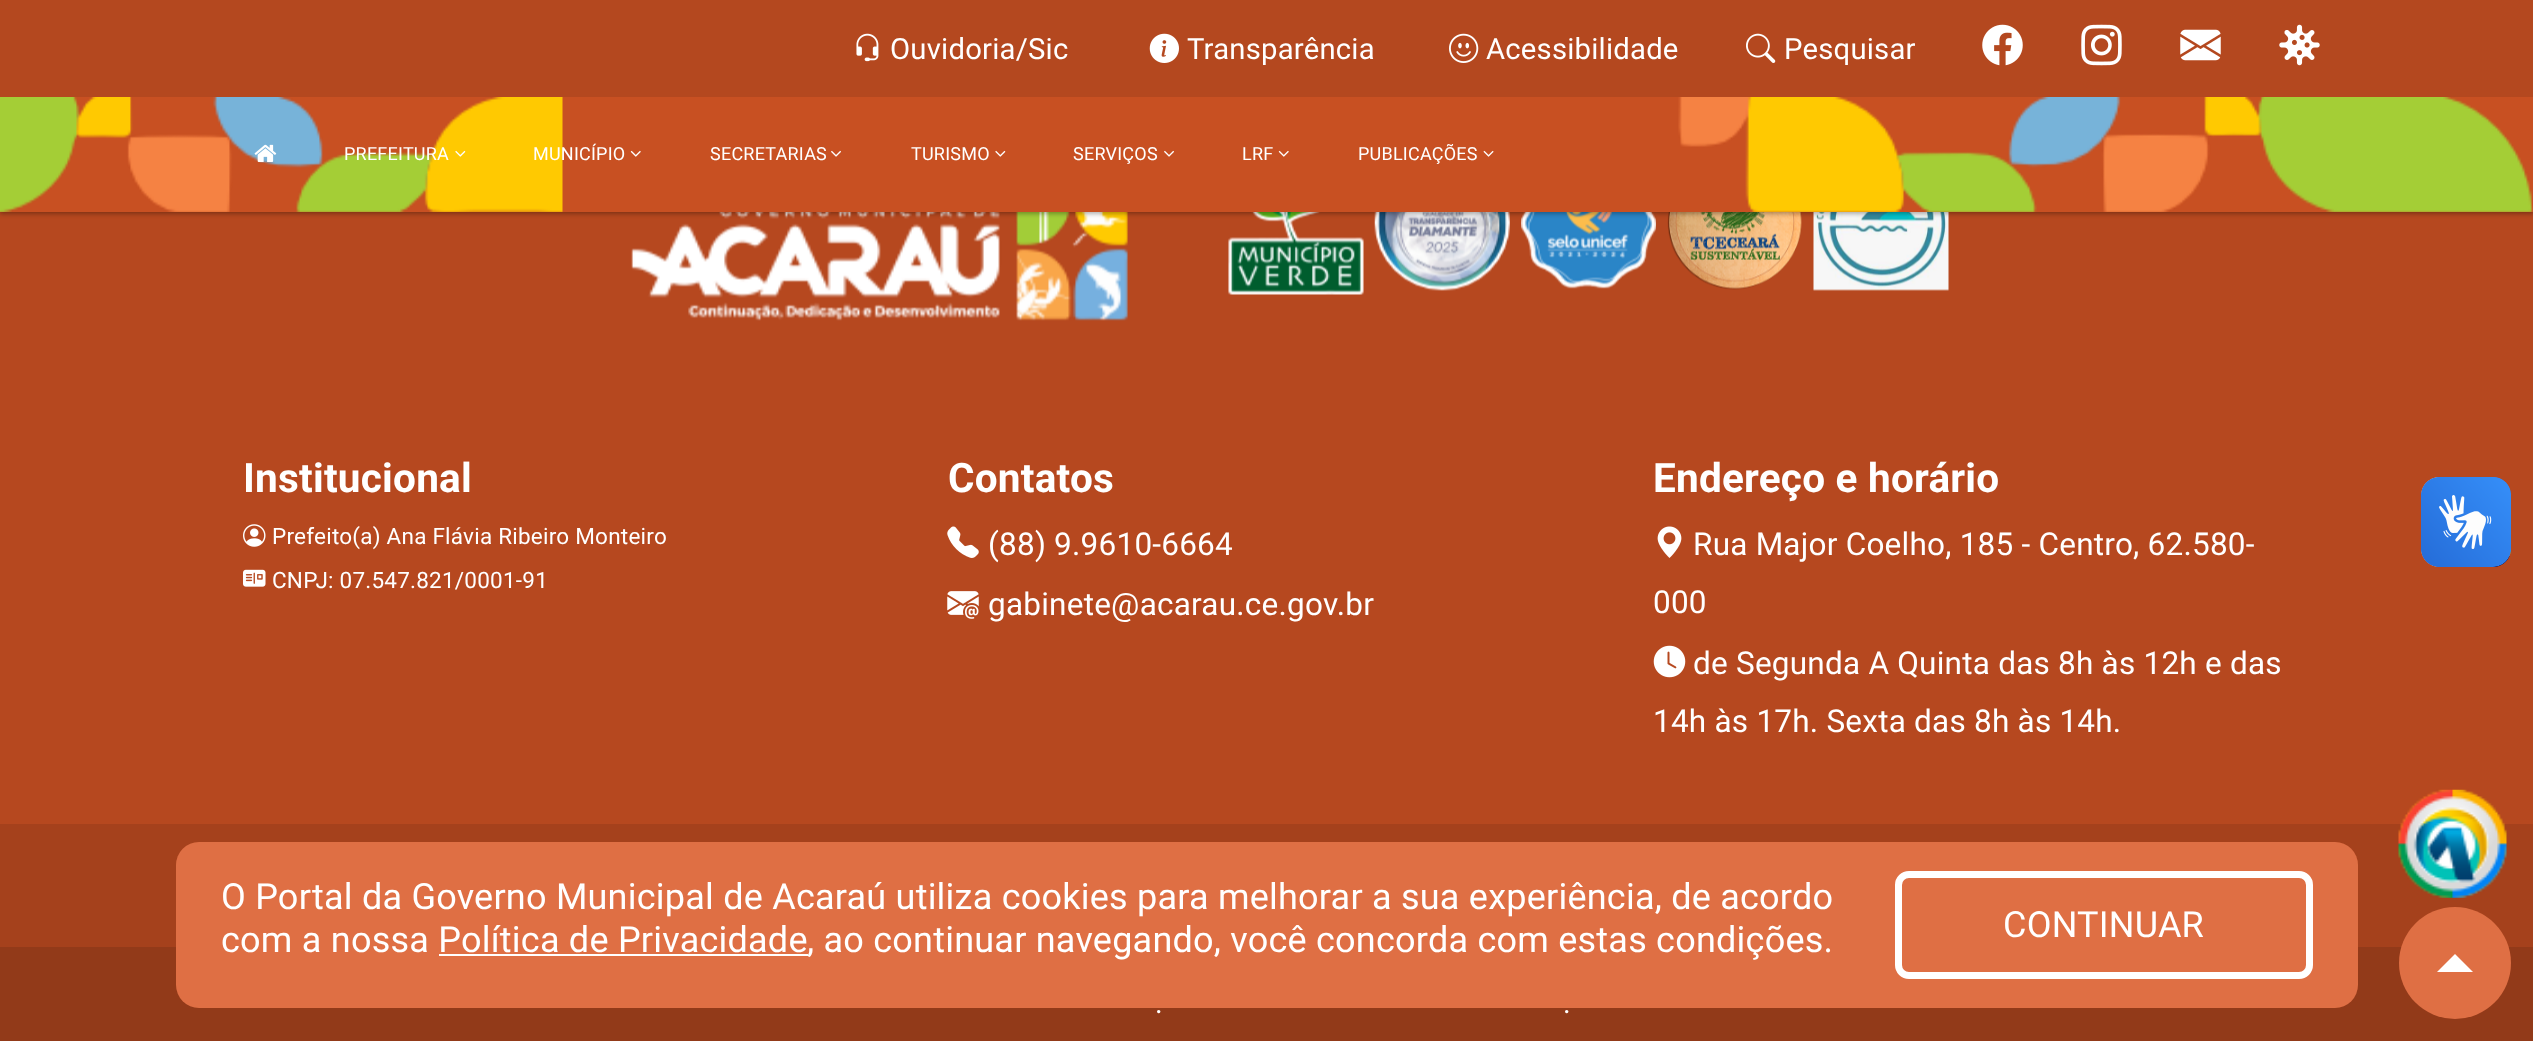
<svg xmlns="http://www.w3.org/2000/svg" width="2533" height="1041">
<style>
.a{font:29.25px Roboto;letter-spacing:0.23px;fill:#fff}
.b{font:18px Roboto;letter-spacing:0.23px;fill:#fff}
.c{font:bold 40.5px Roboto;letter-spacing:0.23px;fill:#fff}
.d{font:22.5px Roboto;letter-spacing:0.23px;fill:#fff}
.e{font:31.5px Roboto;letter-spacing:0.23px;fill:#fff}
.f{font:36px Roboto;letter-spacing:0.23px;fill:#fff}
</style>
<rect width="100%" height="100%" fill="#b6481f"/>
<image href="16.png" x="631" y="212" width="497" height="109"/>
<image href="17.png" x="1228" y="212" width="136" height="83"/>
<image href="18.png" x="1374" y="212" width="136" height="79"/>
<image href="19.png" x="1521" y="212" width="135" height="77"/>
<image href="20.png" x="1667" y="212" width="135" height="78"/>
<image href="21.png" x="1813" y="212" width="136" height="79"/>
<path fill="#0000004d" filter="blur(2px)" d="M0 2h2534v212H0z"/>
<path fill="#b4481f" d="M0 0h2533v97H0z"/>
<image href="1.png" x="856" y="33" width="23" height="29"/>
<image href="2.png" x="1149" y="33" width="30" height="30"/>
<image href="3.png" x="1449" y="33" width="30" height="30"/>
<image href="4.png" x="1746" y="33" width="30" height="30"/>
<image href="5.png" x="1982" y="24" width="41" height="42"/>
<image href="6.png" x="2081" y="24" width="41" height="42"/>
<image href="7.png" x="2180" y="29" width="41" height="32"/>
<image href="8.png" x="2279" y="24" width="41" height="42"/>
<path fill="#c85022" d="M0 97h2533v115H0z"/>
<image href="9.png" x="0" y="97" width="2533" height="115"/>
<image href="10.png" x="254" y="144" width="23" height="18"/>
<image href="11.png" x="455" y="150" width="11" height="7"/>
<image href="12.png" x="630" y="150" width="11" height="7"/>
<image href="13.png" x="831" y="150" width="10" height="7"/>
<image href="14.png" x="995" y="150" width="11" height="7"/>
<image href="13.png" x="1164" y="150" width="10" height="7"/>
<image href="12.png" x="1278" y="150" width="11" height="7"/>
<image href="15.png" x="1483" y="150" width="11" height="7"/>
<image href="22.png" x="243" y="524" width="23" height="23"/>
<image href="23.png" x="243" y="569" width="23" height="18"/>
<image href="24.png" x="947" y="526" width="32" height="32"/>
<image href="25.png" x="947" y="591" width="32" height="28"/>
<image href="26.png" x="1657" y="526" width="25" height="32"/>
<image href="27.png" x="1653" y="645" width="33" height="33"/>
<image href="28.png" x="2421" y="477" width="90" height="90"/>
<image href="29.png" x="2421" y="477" width="90" height="90"/>
<path fill="#a5411c" d="M0 824h2533v123H0z"/>
<image href="30.png" x="2398" y="789" width="109" height="109"/>
<path fill="#923a19" d="M0 947h2533v94H0z"/>
<rect fill="#df6f44" x="176" y="842" width="2182" height="166" rx="23"/>
<path fill="#fff" d="M439 954h369v2H439z"/>
<rect fill="none" stroke="#fff" stroke-width="7" x="1898.5" y="874.5" width="411" height="101" rx="10.5"/>
<circle fill="#df6f44" cx="2455" cy="963" r="56"/>
<path fill="#fff" d="M2473 972h-36l18-18z"/>
<text class="a" x="890" y="59">Ouvidoria/Sic</text>
<text class="a" x="1187" y="59">Transparência</text>
<text class="a" x="1486" y="59">Acessibilidade</text>
<text class="a" x="1784" y="59">Pesquisar</text>
<text class="b" x="344" y="160">PREFEITURA</text>
<text class="b" x="533" y="160">MUNICÍPIO</text>
<text class="b" x="710" y="160">SECRETARIAS</text>
<text class="b" x="911" y="160">TURISMO</text>
<text class="b" x="1073" y="160">SERVIÇOS</text>
<text class="b" x="1242" y="160">LRF</text>
<text class="b" x="1358" y="160">PUBLICAÇÕES</text>
<text class="c" x="243" y="492">Institucional</text>
<text class="d" x="272" y="544">Prefeito(a) Ana Flávia Ribeiro Monteiro</text>
<text class="d" x="272" y="588">CNPJ: 07.547.821/0001-91</text>
<text class="c" x="948" y="492">Contatos</text>
<text class="e" x="988" y="555">(88) 9.9610-6664</text>
<text class="e" x="988" y="615">gabinete@acarau.ce.gov.br</text>
<text class="c" x="1653" y="492">Endereço e horário</text>
<text class="e" x="1693" y="555">Rua Major Coelho, 185 - Centro, 62.580-</text>
<text class="e" x="1653" y="613">000</text>
<text class="e" x="1693" y="674">de Segunda A Quinta das 8h às 12h e das</text>
<text class="e" x="1653" y="732">14h às 17h. Sexta das 8h às 14h.</text>
<text class="f" x="221" y="909">O Portal da Governo Municipal de Acaraú utiliza cookies para melhorar a sua experiência, de acordo</text>
<text class="f" x="221" y="952">com a nossa Política de Privacidade</text>
<text class="f" x="807" y="952">, ao continuar navegando, você concorda com estas condições.</text>
<text class="f" x="2003" y="937">CONTINUAR</text>
<text class="a" x="1155" y="1013">.</text>
<text class="a" x="1563" y="1013">.</text>
</svg>
